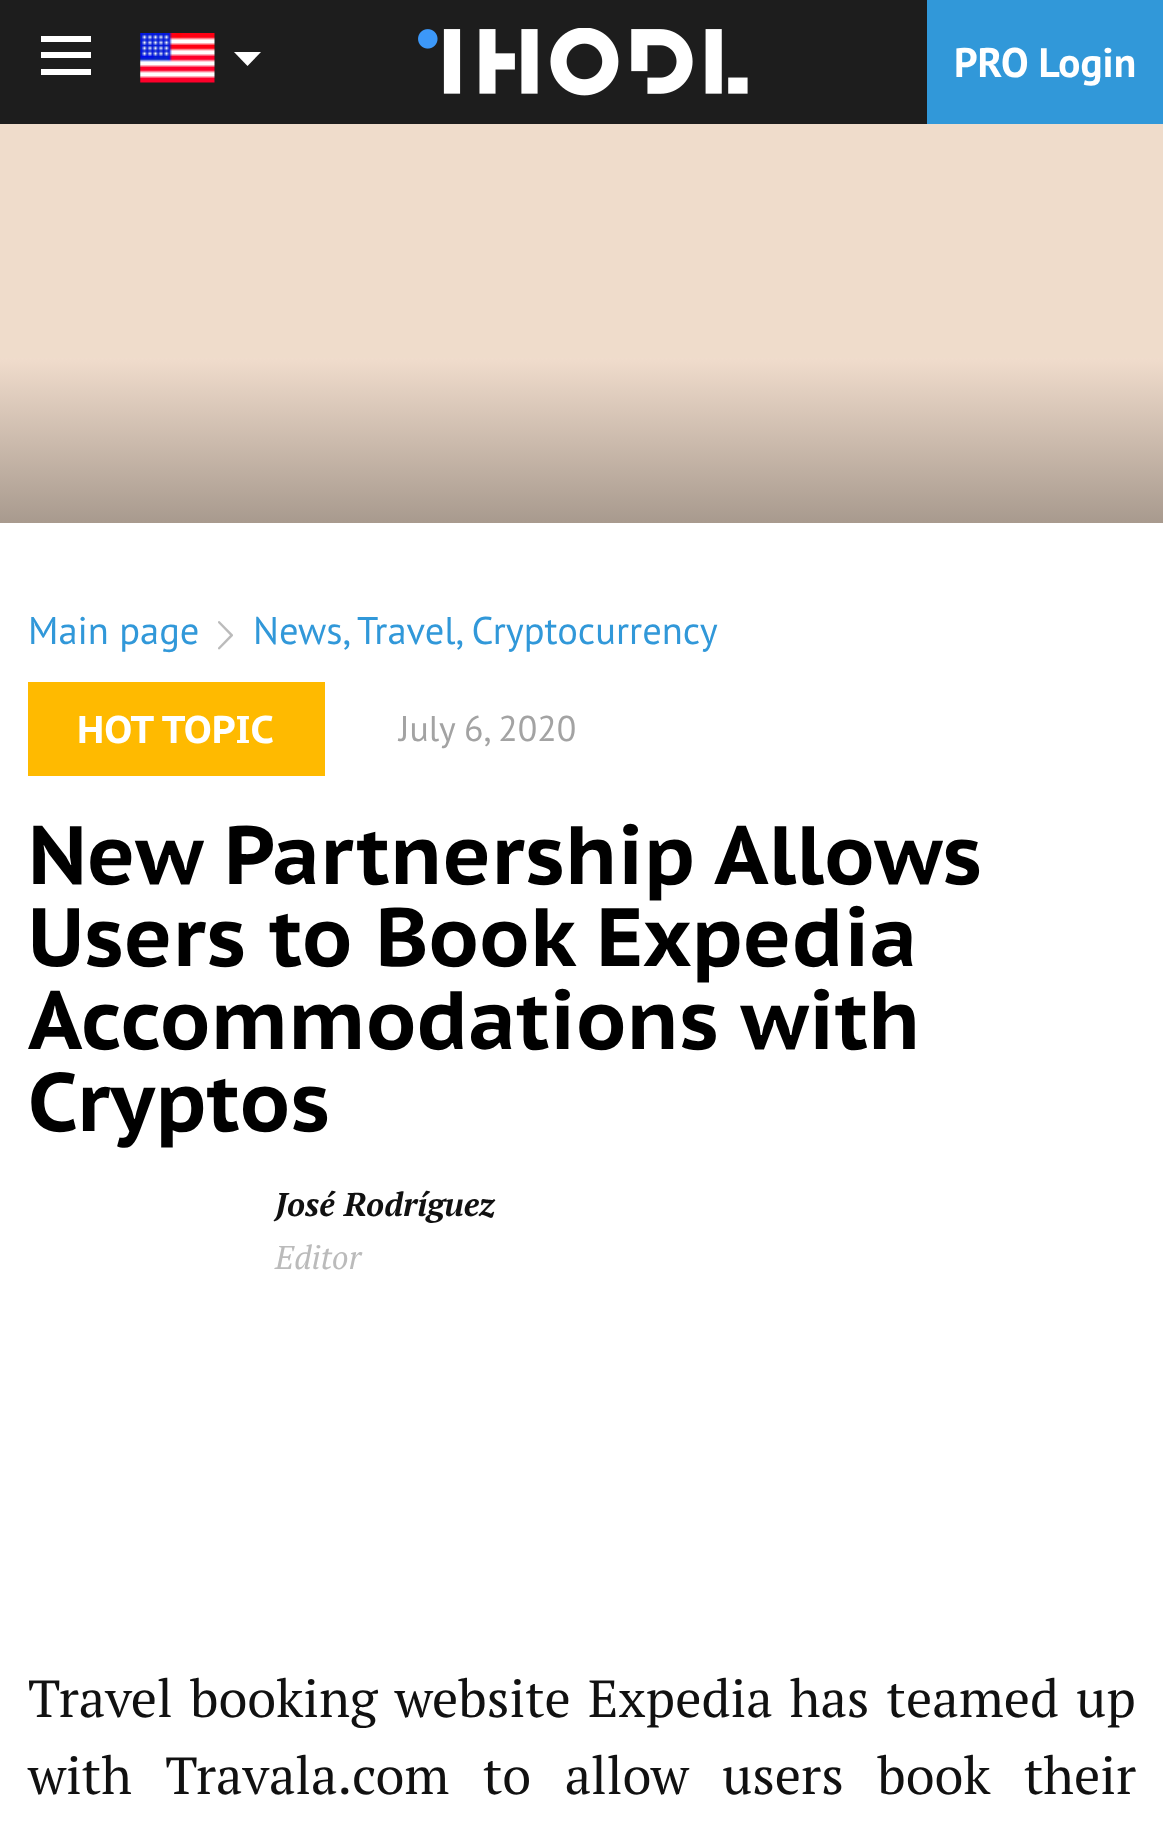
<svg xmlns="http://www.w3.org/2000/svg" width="1163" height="1835">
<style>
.a{font:bold 41.25px PT Sans;fill:#fff}
.b{font:38.5px PT Sans;fill:#3198d9}
.c{font:bold 38.5px PT Sans Caption;fill:#fff}
.d{font:35.75px PT Sans;fill:#a3a3a3}
.e{font:bold 82.5px PT Sans Caption;fill:#000}
.f{font:italic bold 33px PT Serif;fill:#111}
.g{font:italic 33px PT Serif;fill:#bbb}
.h{font:52.25px PT Serif;fill:#111}
</style>
<defs>
<linearGradient id="g1" gradientUnits="userSpaceOnUse" x1="582" y1="523" x2="582" y2="358"><stop offset="0" stop-color="#a89a8e"/><stop offset="1" stop-color="#f0dccc"/></linearGradient>
</defs>
<rect width="100%" height="100%" fill="#fff"/>
<path fill="#1d1d1d" d="M0 0h927v124H0z"/>
<path fill="#fff" d="M41 36h50v6H41z"/>
<path fill="#fff" d="M41 52h50v6H41z"/>
<path fill="#fff" d="M41 69h50v6H41z"/>
<image href="1.png" x="140" y="33" width="75" height="50"/>
<path fill="#fff" d="M234 52h27l-13.5 14z"/>
<image href="2.png" x="418" y="28" width="330" height="68"/>
<path fill="#3198d9" d="M927 0h236v124H927z"/>
<path fill="#efdccb" d="M0 124h1163v234H0z"/>
<path fill="url(#g1)" d="M0 358h1163v165H0z"/>
<image href="3.png" x="218" y="621" width="15" height="29"/>
<path fill="#ffba00" d="M28 682h297v94H28z"/>
<text class="a" x="954" y="77">PRO Login</text>
<text class="b" x="28" y="644">Main page</text>
<text class="b" x="253" y="644">News,</text>
<text class="b" x="357" y="644">Travel, Cryptocurrency</text>
<text class="c" x="77" y="743">HOT TOPIC</text>
<text class="d" x="399" y="741">July 6, 2020</text>
<text class="e" x="28" y="884">New Partnership Allows</text>
<text class="e" x="28" y="966">Users to Book Expedia</text>
<text class="e" x="28" y="1049">Accommodations with</text>
<text class="e" x="28" y="1131">Cryptos</text>
<text class="f" x="275" y="1216">José Rodríguez</text>
<text class="g" x="275" y="1269">Editor</text>
<text class="h" x="28" y="1717" word-spacing="4.5">Travel booking website Expedia has teamed up</text>
<text class="h" x="28" y="1794" word-spacing="20.75">with Travala.com to allow users book their</text>
</svg>
